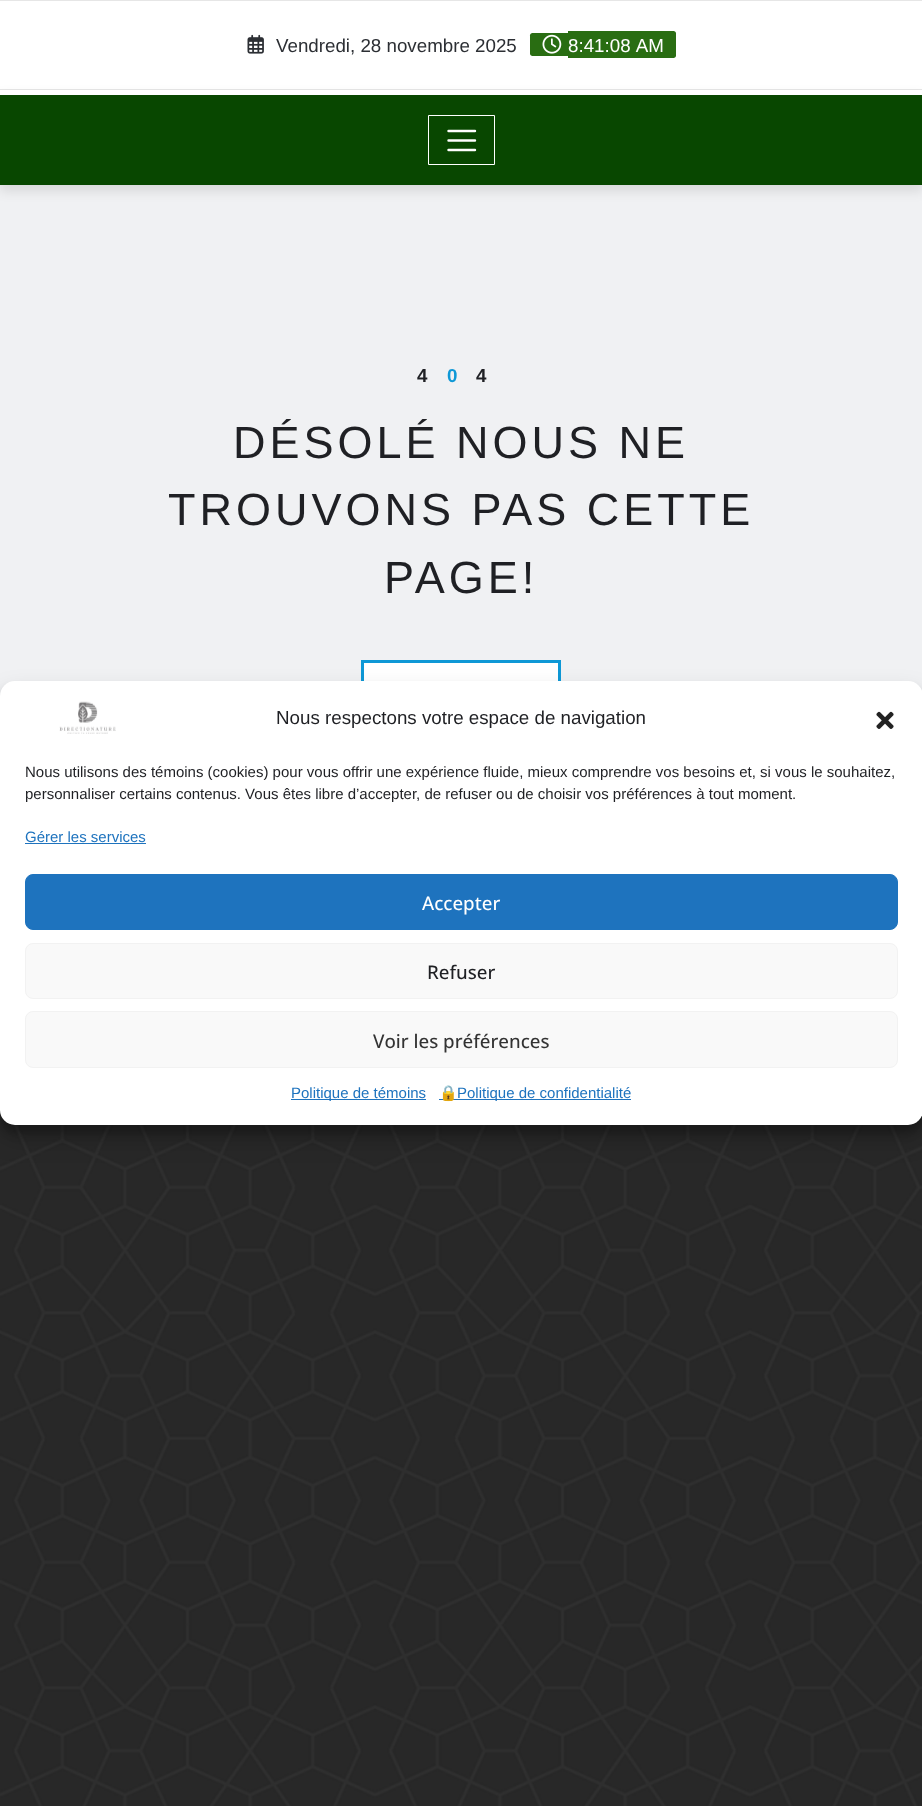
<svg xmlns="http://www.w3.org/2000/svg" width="922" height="1806">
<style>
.a{font:18.75px Liberation Sans;fill:#2c2f34}
.b{font:18.75px Liberation Sans;fill:#fff}
.c{font:bold 18.75px Liberation Sans;letter-spacing:19px;fill:#1f2024}
.d{font:bold 18.75px Liberation Sans;letter-spacing:19px;fill:#0e98d6}
.e{font:45px Liberation Sans;letter-spacing:4px;fill:#1f2024}
.f{font:18.75px Liberation Sans;fill:#1f2024}
.g{font:15px Liberation Sans;fill:#1f2024}
.h{font:15px Liberation Sans;fill:#1e73be}
.i{font:500 18.75px Open Sans;fill:#fff}
.j{font:500 18.75px Open Sans;fill:#1f2024}
.k{font:500 18.75px Open Sans;fill:#333}
.l{font:15px Noto Color Emoji;fill:#1e73be}
</style>
<rect width="100%" height="100%" fill="#fff"/>
<image href="1.png" x="0" y="1110" width="922" height="696"/>
<path fill="#f0f1f3" d="M0 185h922v511H0z"/>
<path fill="#e6e6e6" d="M0 0h922v1H0z"/>
<path fill="#e6e6e6" d="M0 89h922v1H0z"/>
<image href="2.png" x="247" y="34" width="17" height="20"/>
<path fill="#296d12" d="M532.5 33h35.5v23h-35.5c-1.5 0-2.5-1-2.5-2.5v-18c0-1.5 1-2.5 2.5-2.5z"/>
<image href="3.png" x="542" y="34" width="20" height="20"/>
<path fill="#296d12" d="M568 31h105.5c1.5 0 2.5 1 2.5 2.5v22c0 1.5-1 2.5-2.5 2.5h-105.5z"/>
<path fill="#0000001a" filter="blur(6px)" d="M0 96h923v95H0z"/>
<path fill="#084700" d="M0 95h922v90H0z"/>
<path fill="#fff" d="M0 90h922v5H0z"/>
<path fill="none" stroke="#fff" d="M428.5 115.5h66v49H428.5z"/>
<path fill="none" stroke="#fff" stroke-width="2.4" stroke-linecap="round" d="M448.5 131h26.5m-26.5 9.5h26.5m-26.5 9.5h26.5"/>
<path fill="#fff" d="M364 663h194v18H364z"/>
<path fill="none" stroke="#0e98d6" stroke-width="3" d="M362.5 661.5h197v67H362.5z"/>
<rect fill="#0000003b" filter="blur(4px)" y="689" width="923" height="444" rx="15"/>
<rect fill="#00000030" filter="blur(12.5px)" y="694" width="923" height="444" rx="15"/>
<rect fill="#fff" y="681" width="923" height="444" rx="15"/>
<image href="4.png" x="59" y="701" width="57" height="33"/>
<image href="5.png" x="876" y="711" width="18" height="18"/>
<path fill="#1e73be" d="M25 843h121v1H25z"/>
<rect fill="#1e73be" stroke="#1e73be" x="25.5" y="874.5" width="872" height="55" rx="7.5"/>
<rect fill="#f9f9f9" stroke="#f2f2f2" x="25.5" y="943.5" width="872" height="55" rx="7.5"/>
<rect fill="#f9f9f9" stroke="#f2f2f2" x="25.5" y="1011.5" width="872" height="56" rx="7.5"/>
<path fill="#1e73be" d="M291 1099h135v1H291z"/>
<path fill="#1e73be" d="M439 1099h192v1H439z"/>
<text class="a" x="276" y="52">Vendredi, 28 novembre 2025</text>
<text class="b" x="568" y="52" word-spacing="1">8:41:08 AM</text>
<text class="c" x="417" y="382">4</text>
<text class="d" x="447" y="382">0</text>
<text class="c" x="476" y="382">4</text>
<text class="e" x="233" y="458">DÉSOLÉ NOUS NE</text>
<text class="e" x="168" y="525">TROUVONS PAS CETTE</text>
<text class="e" x="384" y="593">PAGE!</text>
<text class="f" x="276" y="724">Nous respectons votre espace de navigation</text>
<text class="g" x="25" y="777">Nous utilisons des témoins (cookies) pour vous offrir une expérience fluide, mieux comprendre vos besoins et, si vous le souhaitez,</text>
<text class="g" x="25" y="799">personnaliser certains contenus. Vous êtes libre d’accepter, de refuser ou de choisir vos préférences à tout moment.</text>
<text class="h" x="25" y="842">Gérer les services</text>
<text class="i" x="422" y="910">Accepter</text>
<text class="j" x="427" y="979">Refuser</text>
<text class="k" x="373" y="1048">Voir les préférences</text>
<text class="h" x="291" y="1098">Politique de témoins</text>
<text class="l" x="439" y="1098">🔒</text>
<text class="h" x="457" y="1098">Politique de confidentialité</text>
</svg>
